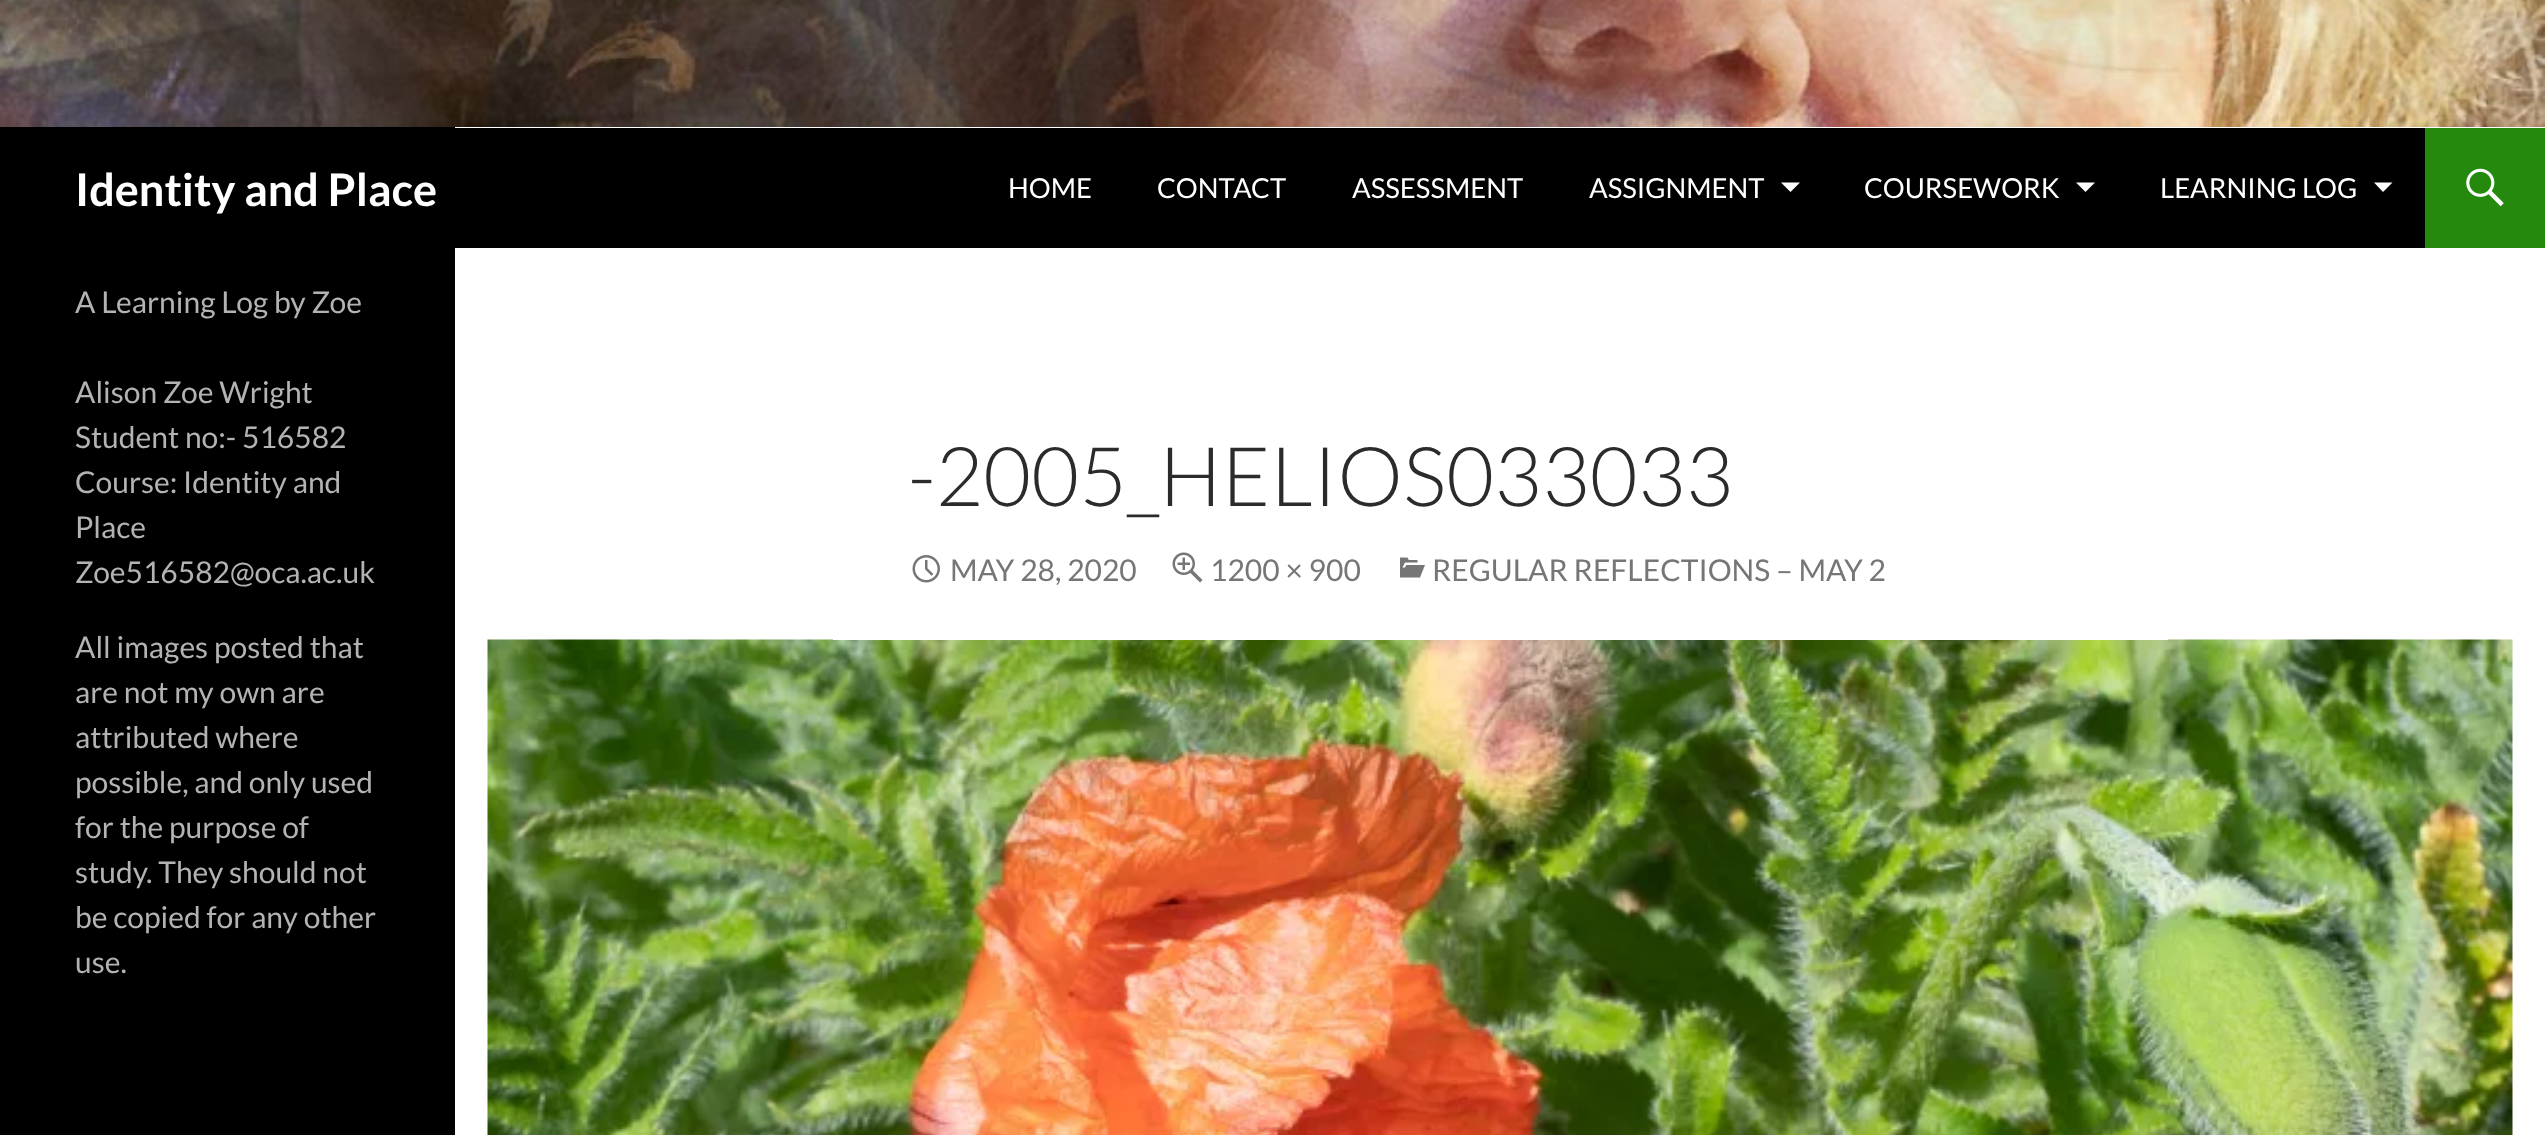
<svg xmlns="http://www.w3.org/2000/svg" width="2545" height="1135">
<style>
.a{font:bold 45px Lato;fill:#fff}
.b{font:27.5px Lato;fill:#fff}
.c{font:30px Lato;fill:#b3b3b3}
.d{font:300 82.5px Lato;fill:#2b2b2b}
.e{font:30px Lato;fill:#767676}
</style>
<rect width="100%" height="100%" fill="#fff"/>
<image href="1.png" x="0" y="0" width="2545" height="127"/>
<path fill="#000" d="M0 127h455v1008H0z"/>
<path fill="#000" d="M455 128h1970v120H455z"/>
<path fill="#fff" d="M1781 182.5h19l-9.5 9.5z"/>
<path fill="#fff" d="M2076 182.5h19l-9.5 9.5z"/>
<path fill="#fff" d="M2374 182.5h18.5l-9.5 9.5z"/>
<path fill="#24890d" d="M2425 128h120v120H2425z"/>
<image href="2.png" x="2466" y="168" width="38" height="39"/>
<image href="6.png" x="487" y="639" width="2026" height="496"/>
<path fill="#fff" d="M833 639h1335v1H833z"/>
<image href="3.png" x="912" y="555" width="28" height="28"/>
<image href="4.png" x="1172" y="552" width="31" height="31"/>
<image href="5.png" x="1400" y="557" width="25" height="21"/>
<text class="a" x="75" y="206">Identity and Place</text>
<text class="b" x="1008" y="198">HOME</text>
<text class="b" x="1157" y="198">CONTACT</text>
<text class="b" x="1352" y="198">ASSESSMENT</text>
<text class="b" x="1589" y="198">ASSIGNMENT</text>
<text class="b" x="1864" y="198">COURSEWORK</text>
<text class="b" x="2160" y="198">LEARNING LOG</text>
<text class="c" x="75" y="313">A Learning Log by Zoe</text>
<text class="c" x="75" y="403">Alison Zoe Wright</text>
<text class="c" x="75" y="448">Student no:- 516582</text>
<text class="c" x="75" y="493">Course: Identity and</text>
<text class="c" x="75" y="538">Place</text>
<text class="c" x="75" y="583">Zoe516582@oca.ac.uk</text>
<text class="c" x="75" y="658">All images posted that</text>
<text class="c" x="75" y="703">are not my own are</text>
<text class="c" x="75" y="748">attributed where</text>
<text class="c" x="75" y="793">possible, and only used</text>
<text class="c" x="75" y="838">for the purpose of</text>
<text class="c" x="75" y="883">study. They should not</text>
<text class="c" x="75" y="928">be copied for any other</text>
<text class="c" x="75" y="973">use.</text>
<text class="d" x="908" y="506">-2005_HELIOS033033</text>
<text class="e" x="950" y="581">MAY 28, 2020</text>
<text class="e" x="1210" y="581">1200 × 900</text>
<text class="e" x="1432" y="581">REGULAR REFLECTIONS – MAY 2</text>
</svg>
